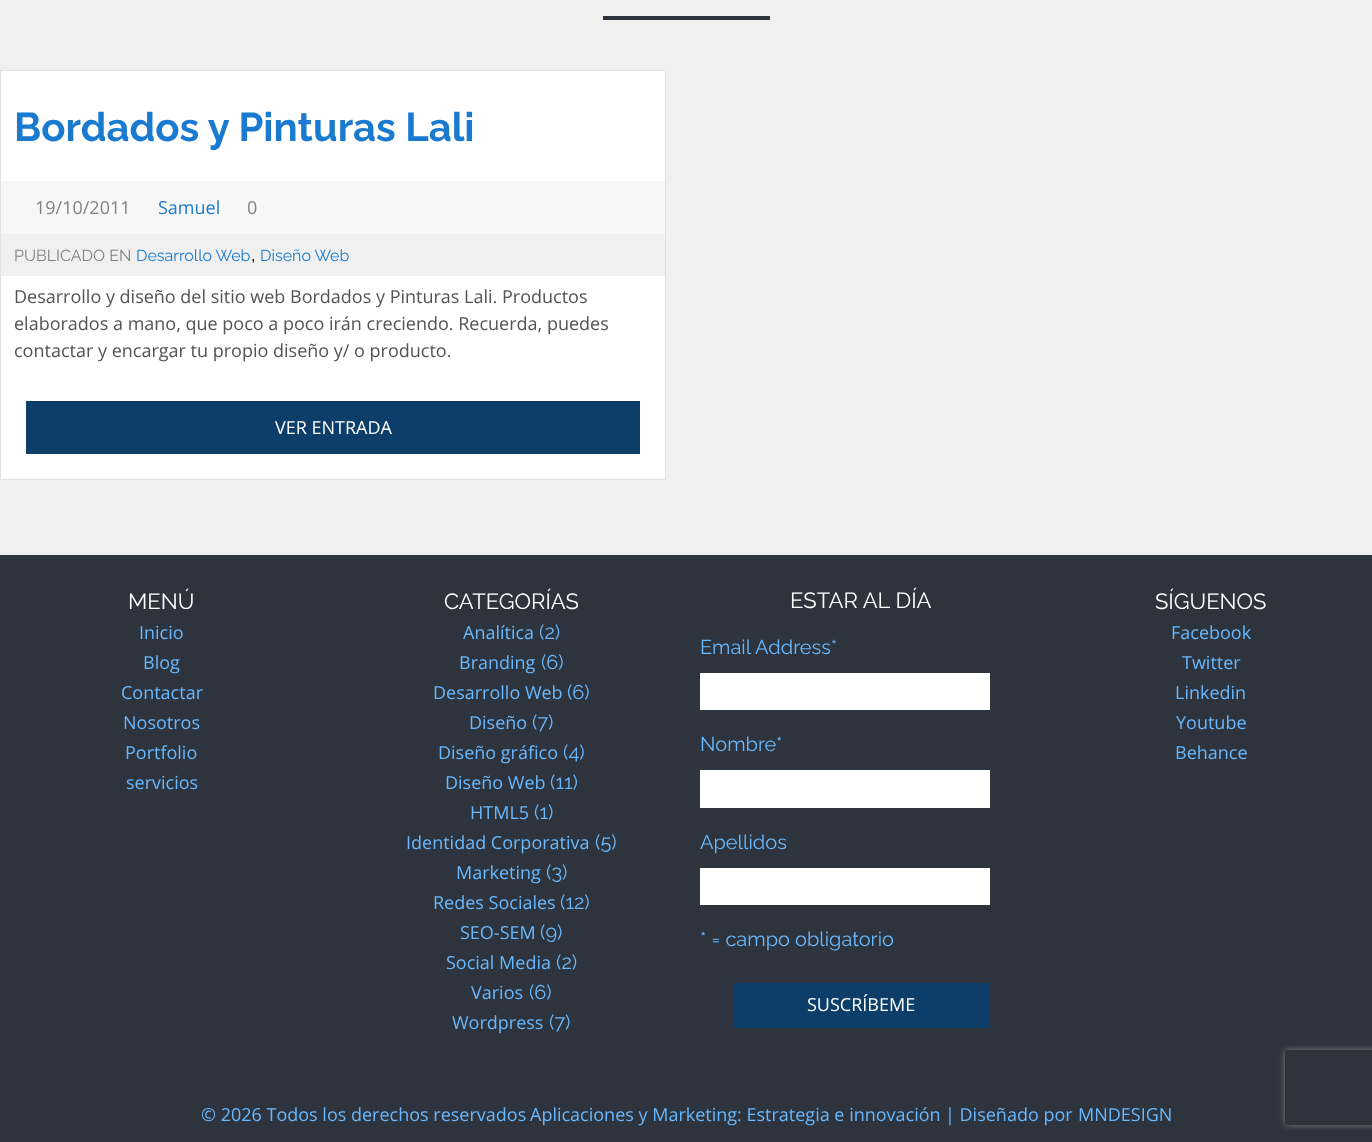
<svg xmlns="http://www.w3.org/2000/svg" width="1372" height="1142">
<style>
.a{font:bold 40px Raleway;fill:#197acf}
.b{font:18px Open Sans;fill:#828282}
.c{font:18px Open Sans;fill:#197acf}
.d{font:16px Raleway;fill:#828282}
.e{font:16px Raleway;fill:#197acf}
.f{font:20px Raleway;fill:#000}
.g{font:18px Open Sans;fill:#535353}
.h{font:18px Open Sans;fill:#fff}
.i{font:22px Raleway;fill:#fff}
.j{font:18px Open Sans;fill:#69b8fd}
.k{font:20px Raleway;fill:#69b8fd}
</style>
<defs>
<clipPath id="clip1"><path d="M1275 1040h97v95h-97zm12.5 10h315c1.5 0 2.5 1 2.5 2.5v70c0 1.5-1 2.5-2.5 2.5h-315c-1.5 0-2.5-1-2.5-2.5v-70c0-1.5 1-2.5 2.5-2.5z" clip-rule="evenodd"/></clipPath>
</defs>
<rect width="100%" height="100%" fill="#f0f0f0"/>
<path fill="#2d343e" d="M603 16h167v4H603z"/>
<path fill="#fff" stroke="#e1e1e1" d="M0.5 70.5h665v409H0.5z"/>
<path fill="#f7f7f7" d="M1 181h664v53H1z"/>
<path fill="#f0f0f0" d="M1 234h664v42H1z"/>
<path fill="#0d3e69" d="M26 401h614v53H26z"/>
<path fill="#2d343e" d="M0 555h1372v587H0z"/>
<path fill="#fff" d="M700 673h290v37H700z"/>
<path fill="#fff" d="M700 770h290v38H700z"/>
<path fill="#fff" d="M700 868h290v37H700z"/>
<path fill="#0d3e69" d="M733 983h257v45H733z"/>
<g clip-path="url(#clip1)">
<rect fill="#808080" filter="blur(3px)" x="1285" y="1050" width="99" height="75" rx="2.5"/>
</g>
<text class="a" x="14" y="141">Bordados y Pinturas Lali</text>
<text class="b" x="35" y="214">19/10/2011</text>
<text class="c" x="158" y="214">Samuel</text>
<text class="b" x="247" y="214">0</text>
<text class="d" x="14" y="261">PUBLICADO EN</text>
<text class="e" x="136" y="261">Desarrollo Web</text>
<text class="f" x="251" y="261">,</text>
<text class="e" x="260" y="261">Diseño Web</text>
<text class="g" x="14" y="303">Desarrollo y diseño del sitio web Bordados y Pinturas Lali. Productos</text>
<text class="g" x="14" y="330">elaborados a mano, que poco a poco irán creciendo. Recuerda, puedes</text>
<text class="g" x="14" y="357">contactar y encargar tu propio diseño y/ o producto.</text>
<text class="h" x="275" y="434">VER ENTRADA</text>
<text class="i" x="128" y="609">MENÚ</text>
<text class="j" x="139" y="639">Inicio</text>
<text class="j" x="143" y="669">Blog</text>
<text class="j" x="121" y="699">Contactar</text>
<text class="j" x="123" y="729">Nosotros</text>
<text class="j" x="125" y="759">Portfolio</text>
<text class="j" x="126" y="789">servicios</text>
<text class="i" x="444" y="609">CATEGORÍAS</text>
<text class="j" x="463" y="639">Analítica</text>
<text class="k" x="539" y="639">(2)</text>
<text class="j" x="459" y="669">Branding</text>
<text class="k" x="541" y="669">(6)</text>
<text class="j" x="433" y="699">Desarrollo Web</text>
<text class="k" x="567" y="699">(6)</text>
<text class="j" x="469" y="729">Diseño</text>
<text class="k" x="532" y="729">(7)</text>
<text class="j" x="438" y="759">Diseño gráfico</text>
<text class="k" x="563" y="759">(4)</text>
<text class="j" x="445" y="789">Diseño Web</text>
<text class="k" x="550" y="789">(11)</text>
<text class="j" x="470" y="819">HTML5</text>
<text class="k" x="534" y="819">(1)</text>
<text class="j" x="406" y="849">Identidad Corporativa</text>
<text class="k" x="595" y="849">(5)</text>
<text class="j" x="456" y="879">Marketing</text>
<text class="k" x="546" y="879">(3)</text>
<text class="j" x="433" y="909">Redes Sociales</text>
<text class="k" x="560" y="909">(12)</text>
<text class="j" x="460" y="939">SEO-SEM</text>
<text class="k" x="540" y="939">(9)</text>
<text class="j" x="446" y="969">Social Media</text>
<text class="k" x="556" y="969">(2)</text>
<text class="j" x="471" y="999">Varios</text>
<text class="k" x="529" y="999">(6)</text>
<text class="j" x="452" y="1029">Wordpress</text>
<text class="k" x="549" y="1029">(7)</text>
<text class="i" x="790" y="608">ESTAR AL DÍA</text>
<text class="k" x="700" y="654">Email Address*</text>
<text class="k" x="700" y="751">Nombre</text>
<text class="k" x="776" y="751">*</text>
<text class="k" x="700" y="849">Apellidos</text>
<text class="k" x="700" y="946">* = campo obligatorio</text>
<text class="h" x="807" y="1011">SUSCRÍBEME</text>
<text class="i" x="1155" y="609">SÍGUENOS</text>
<text class="j" x="1171" y="639">Facebook</text>
<text class="j" x="1182" y="669">Twitter</text>
<text class="j" x="1175" y="699">Linkedin</text>
<text class="j" x="1176" y="729">Youtube</text>
<text class="j" x="1175" y="759">Behance</text>
<text class="j" x="201" y="1121">© 2026 Todos los derechos reservados</text>
<text class="j" x="530" y="1121">Aplicaciones y Marketing: Estrategia e innovación</text>
<text class="j" x="945" y="1121">| Diseñado por</text>
<text class="j" x="1078" y="1121">MNDESIGN</text>
</svg>
